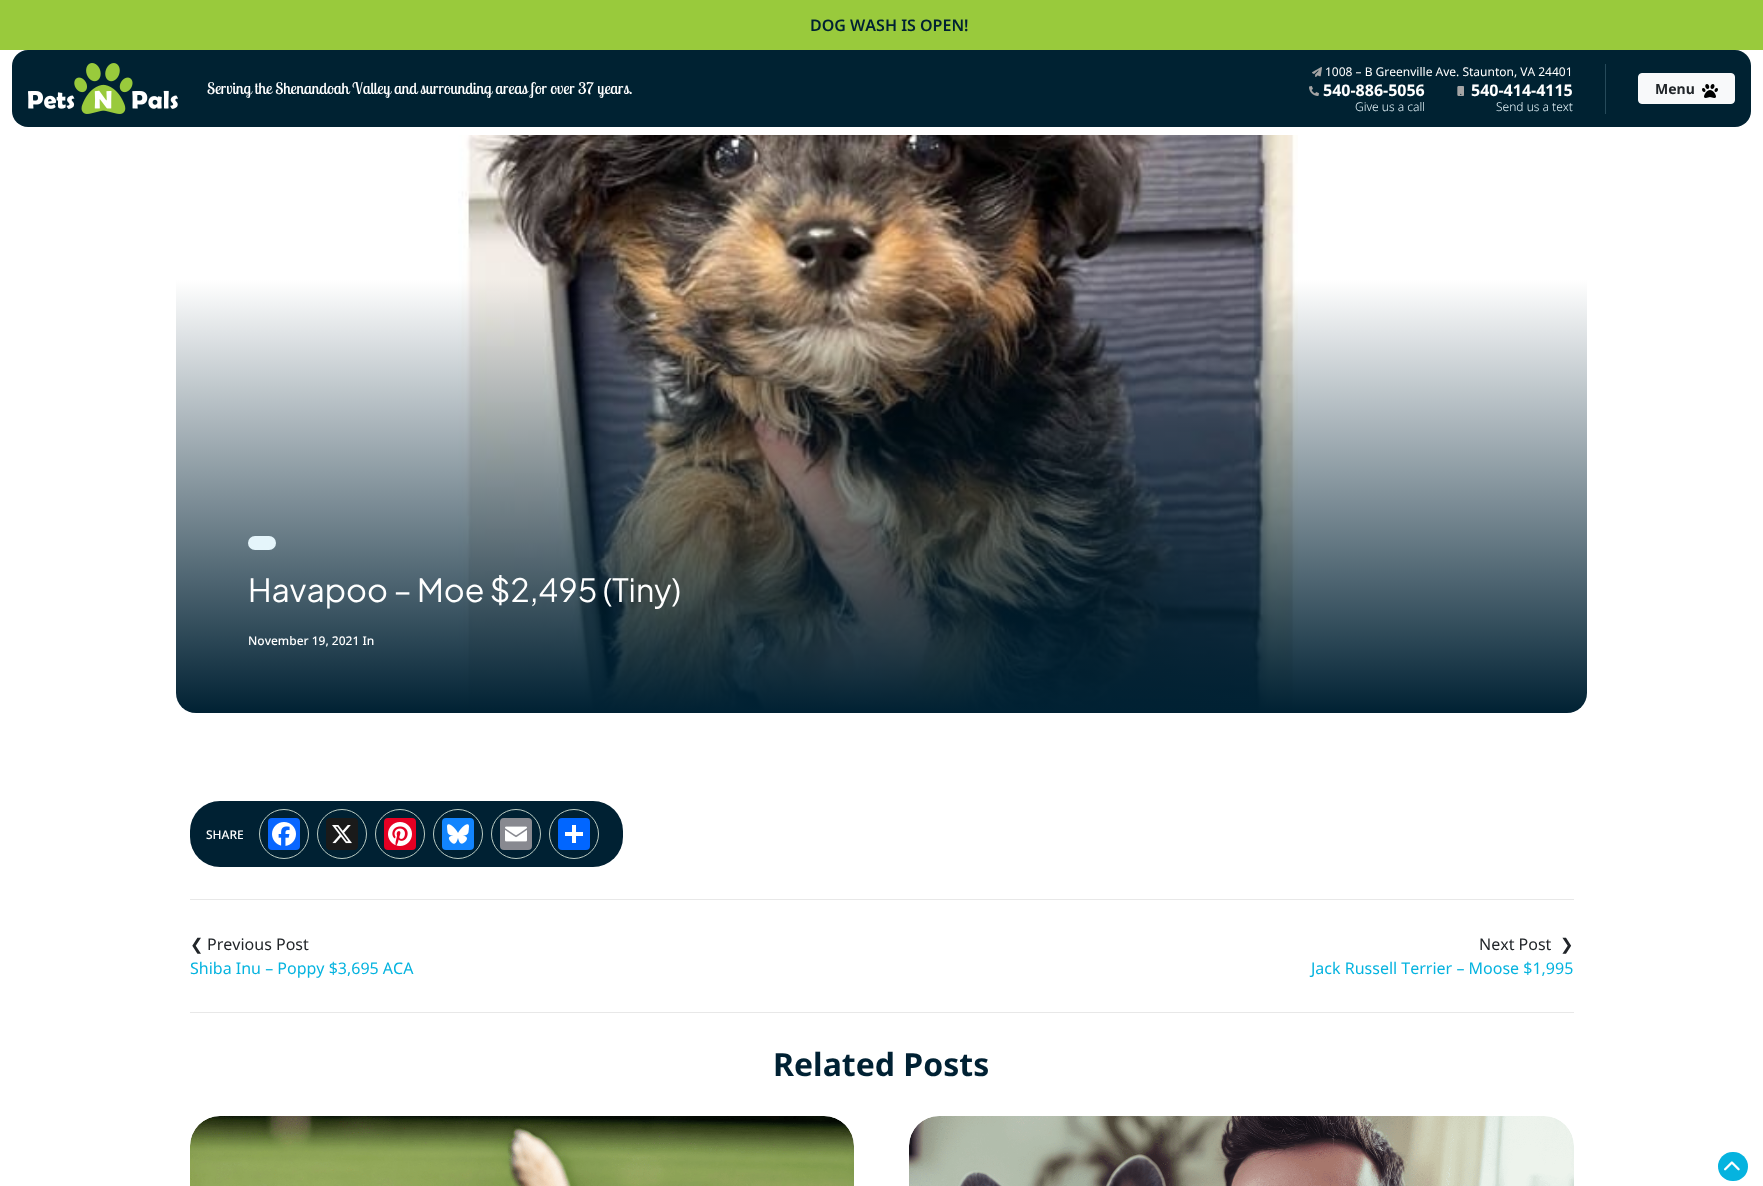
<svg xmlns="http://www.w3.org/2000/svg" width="1763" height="1186">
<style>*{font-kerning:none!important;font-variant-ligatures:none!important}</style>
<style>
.a{font:600 16px Noto Sans;fill:#002133}
.b{font:16px Lobster Two;fill:#fff}
.c{font:12px Noto Sans;fill:#fff}
.d{font:bold 16px Noto Sans;fill:#fff}
.e{font:300 12px Noto Sans;fill:#e5f5fb}
.f{font:bold 14px Noto Sans;fill:#212529}
.g{font:32px Plus Jakarta Sans;fill:#fff}
.h{font:500 12px Noto Sans;fill:#fff}
.i{font:16px DejaVu Sans;fill:#212529}
.j{font:16px Noto Sans;fill:#212529}
.k{font:16px Noto Sans;fill:#05b3df}
.l{font:bold 32px Noto Sans;fill:#002133}
</style>
<defs>
<linearGradient id="g1" gradientUnits="userSpaceOnUse" x1="882" y1="135" x2="882" y2="713"><stop offset="0.25" stop-color="#002133" stop-opacity="0"/><stop offset="1" stop-color="#002133"/></linearGradient>
</defs>
<rect width="100%" height="100%" fill="#fff"/>
<path fill="#99ca3c" d="M0 0h1763v50H0z"/>
<rect fill="#002232" x="12" y="50" width="1739" height="77" rx="16"/>
<image href="1.png" x="28" y="63" width="150" height="51"/>
<path fill="#264a5a" d="M1605 64h1v50H1605z"/>
<image href="2.png" x="1312" y="67" width="10" height="10"/>
<image href="3.png" x="1309" y="86" width="10" height="10"/>
<image href="4.png" x="1457" y="86" width="7" height="10"/>
<rect fill="#f8f9fa" stroke="#f8f9fa" x="1638.5" y="73.5" width="96" height="30" rx="3.5"/>
<image href="5.png" x="1702" y="84" width="16" height="14"/>
<image href="6.png" x="458" y="135" width="840" height="575"/>
<rect fill="url(#g1)" x="176" y="135" width="1411" height="578" rx="20"/>
<rect fill="#e5f5fb" x="248" y="536" width="28" height="14" rx="7"/>
<rect fill="#002133" x="190" y="801" width="433" height="66" rx="30"/>
<circle fill="none" stroke="#bacbc2" cx="284" cy="834" r="24.5"/>
<rect fill="#0866ff" x="268" y="818" width="32" height="32" rx="4"/>
<image href="7.png" x="272" y="822" width="24" height="24"/>
<circle fill="none" stroke="#bacbc2" cx="342" cy="834" r="24.5"/>
<rect fill="#1a1a1a" x="326" y="818" width="32" height="32" rx="4"/>
<image href="8.png" x="332" y="825" width="20" height="19"/>
<circle fill="none" stroke="#bacbc2" cx="400" cy="834" r="24.5"/>
<rect fill="#e60023" x="384" y="818" width="32" height="32" rx="4"/>
<image href="9.png" x="388" y="822" width="24" height="24"/>
<circle fill="none" stroke="#bacbc2" cx="458" cy="834" r="24.5"/>
<rect fill="#1285fe" x="442" y="818" width="32" height="32" rx="4"/>
<image href="10.png" x="447" y="824" width="22" height="20"/>
<circle fill="none" stroke="#bacbc2" cx="516" cy="834" r="24.5"/>
<rect fill="#888990" x="500" y="818" width="32" height="32" rx="4"/>
<image href="11.png" x="505" y="826" width="22" height="16"/>
<circle fill="none" stroke="#bacbc2" cx="574" cy="834" r="24.5"/>
<rect fill="#0166ff" x="558" y="818" width="32" height="32" rx="4"/>
<path fill="#fff" d="M572 825h4v18H572z"/>
<path fill="#fff" d="M565 832h18v4H565z"/>
<path fill="#e8e8e8" d="M190 899h1384v1H190z"/>
<path fill="#e8e8e8" d="M190 1012h1384v1H190z"/>
<image href="12.png" x="190" y="1116" width="664" height="70"/>
<image href="13.png" x="909" y="1116" width="665" height="70"/>
<rect fill="#05b3df" x="1718" y="1152" width="30" height="29" rx="14.5"/>
<image href="14.png" x="1724" y="1161" width="16" height="10"/>
<text class="a" x="810" y="31">DOG WASH IS OPEN!</text>
<text class="b" x="207" y="94">Serving the Shenandoah Valley and surrounding areas for over 37 years.</text>
<text class="c" x="1325" y="76">1008 – B Greenville Ave. Staunton, VA 24401</text>
<text class="d" x="1323" y="96">540-886-5056</text>
<text class="e" x="1355" y="111">Give us a call</text>
<text class="d" x="1471" y="96">540-414-4115</text>
<text class="e" x="1496" y="111">Send us a text</text>
<text class="f" x="1655" y="94">Menu</text>
<text class="g" x="248" y="602">Havapoo – Moe $2,495 (Tiny)</text>
<text class="h" x="248" y="645">November 19, 2021 In</text>
<text class="h" x="206" y="839">SHARE</text>
<text class="i" x="190" y="950">❮</text>
<text class="j" x="207" y="950">Previous Post</text>
<text class="k" x="190" y="974">Shiba Inu – Poppy $3,695 ACA</text>
<text class="j" x="1479" y="950">Next Post</text>
<text class="i" x="1560" y="950">❯</text>
<text class="k" x="1311" y="974">Jack Russell Terrier – Moose $1,995</text>
<text class="l" x="773" y="1076">Related Posts</text>
</svg>
